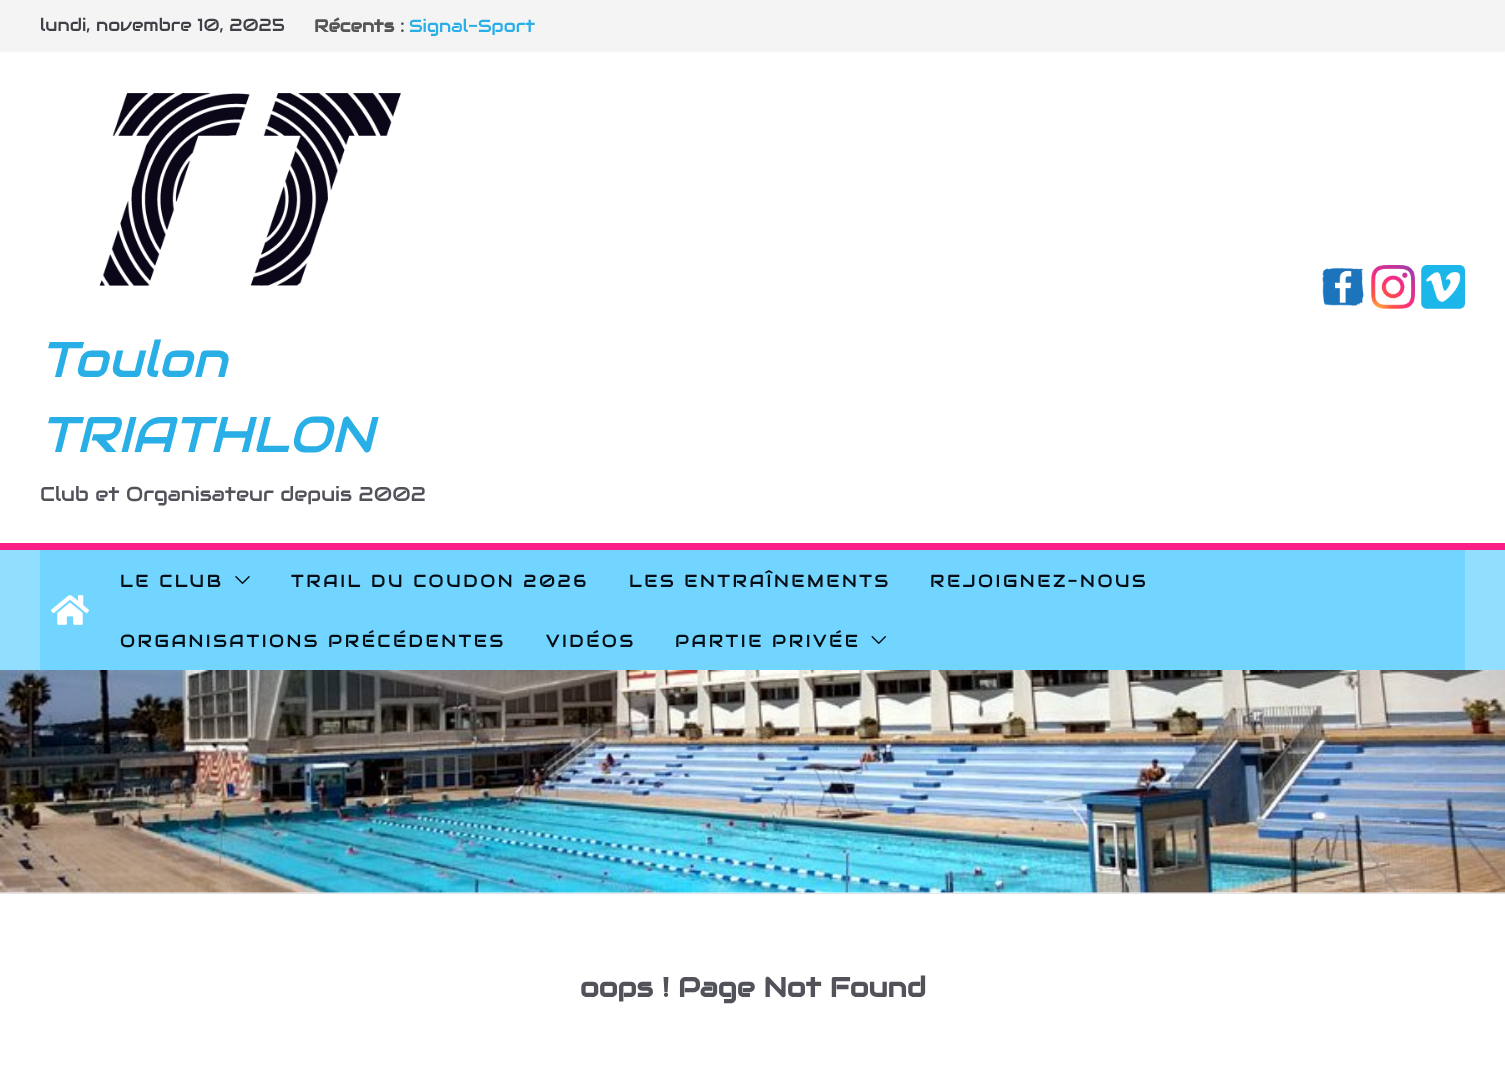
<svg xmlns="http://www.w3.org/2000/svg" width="1505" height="1079">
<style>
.a{font:17.5px Audiowide;fill:#3f3f46}
.b{font:bold 17.5px Audiowide;fill:#555}
.c{font:17.5px Audiowide;fill:#29aee6}
.d{font:italic 50px Audiowide;fill:#29aee6}
.e{font:20px Audiowide;fill:#52525b}
.f{font:17.5px Audiowide;letter-spacing:2.5px;fill:#040e16}
.g{font:bold 27.5px Audiowide;fill:#52525b}
</style>
<rect width="100%" height="100%" fill="#fff"/>
<path fill="#0000001a" filter="blur(1px)" d="M0 0h1505v51H0z"/>
<path fill="#f4f4f5" d="M0 0h1505v51H0z"/>
<image href="1.png" x="1322" y="267" width="43" height="39"/>
<image href="2.png" x="1371" y="265" width="44" height="44"/>
<image href="3.png" x="1421" y="265" width="44" height="44"/>
<image href="4.png" x="99" y="93" width="302" height="193"/>
<path fill="#91deff" d="M0 550h1505v120H0z"/>
<path fill="#fb1e86" d="M0 543h1505v7H0z"/>
<path fill="#72d5ff" d="M40 550h1425v120H40z"/>
<image href="5.png" x="51" y="595" width="38" height="30"/>
<image href="6.png" x="235" y="576" width="15" height="8"/>
<image href="7.png" x="871" y="636" width="15" height="8"/>
<image href="8.png" x="0" y="670" width="1505" height="223"/>
<path fill="#e4e4e7" d="M0 893h1505v1H0z"/>
<text class="a" x="40" y="31">lundi, novembre 10, 2025</text>
<text class="b" x="314" y="32">Récents :</text>
<text class="c" x="409" y="32">Signal-Sport</text>
<text class="d" x="40" y="377">Toulon</text>
<text class="d" x="40" y="452">TRIATHLON</text>
<text class="e" x="40" y="501">Club et Organisateur depuis 2002</text>
<text class="f" x="120" y="587">LE CLUB</text>
<text class="f" x="291" y="587">TRAIL DU COUDON 2026</text>
<text class="f" x="629" y="587">LES ENTRAÎNEMENTS</text>
<text class="f" x="930" y="587">REJOIGNEZ-NOUS</text>
<text class="f" x="120" y="647">ORGANISATIONS PRÉCÉDENTES</text>
<text class="f" x="546" y="647">VIDÉOS</text>
<text class="f" x="675" y="647">PARTIE PRIVÉE</text>
<text class="g" x="580" y="997">oops ! Page Not Found</text>
</svg>
